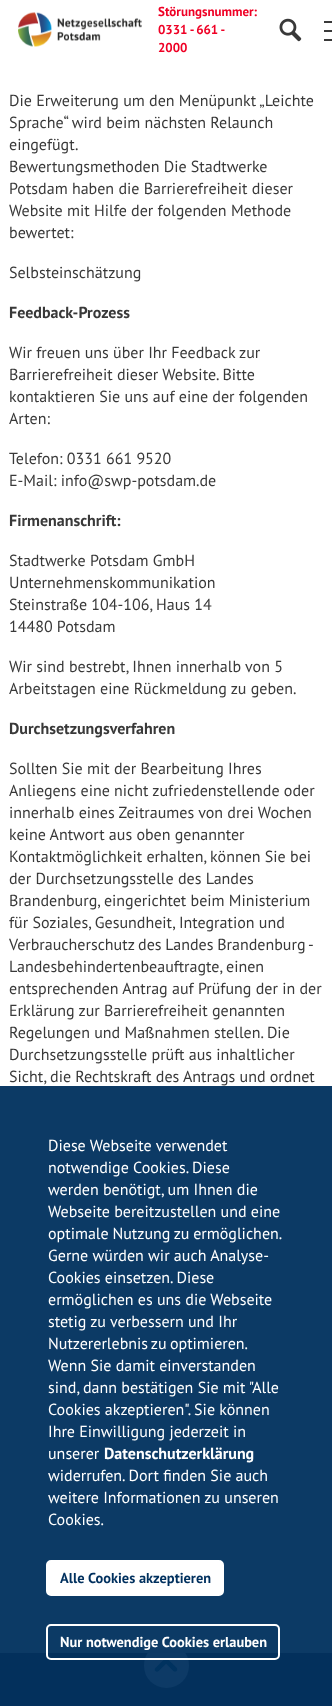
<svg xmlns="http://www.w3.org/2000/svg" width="332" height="1706">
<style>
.a{font:bold 13px PT Sans;fill:#ef0025}
.b{font:16px PT Sans;fill:#393939}
.c{font:bold 16px PT Sans;fill:#393939}
.d{font:16px PT Sans;fill:#fff}
.e{font:bold 16px PT Sans;fill:#fff}
.f{font:bold 14.4px PT Sans;fill:#00305e}
.g{font:bold 14.4px PT Sans;fill:#fff}
</style>
<rect width="100%" height="100%" fill="#0c3a65"/>
<path fill="#fff" d="M0 0h332v1086H0z"/>
<image href="1.png" x="18" y="12" width="124" height="35"/>
<image href="2.png" x="279" y="18" width="23" height="24"/>
<path fill="#393939" d="M324 21h8v2H324z"/>
<path fill="#393939" d="M324 30h8v2H324z"/>
<path fill="#393939" d="M324 39h8v2H324z"/>
<path fill="#03305c" d="M0 1653h332v53H0z"/>
<rect fill="#0d3a66" x="144" y="1643" width="45" height="45" rx="22"/>
<image href="3.png" x="154" y="1660" width="24" height="12"/>
<rect fill="#fff" stroke="#fff" stroke-width="2" x="47" y="1561" width="176" height="34" rx="4"/>
<rect fill="none" stroke="#fff" stroke-width="2" x="47" y="1625" width="232" height="34" rx="4"/>
<text class="a" x="158" y="16">Störungsnummer:</text>
<text class="a" x="158" y="34" word-spacing="-0.5">0331 - 661 -</text>
<text class="a" x="158" y="52">2000</text>
<text class="b" x="9" y="106">Die Erweiterung um den Menüpunkt „Leichte</text>
<text class="b" x="9" y="128">Sprache“ wird beim nächsten Relaunch</text>
<text class="b" x="9" y="150">eingefügt.</text>
<text class="b" x="9" y="172">Bewertungsmethoden Die Stadtwerke</text>
<text class="b" x="9" y="194">Potsdam haben die Barrierefreiheit dieser</text>
<text class="b" x="9" y="216">Website mit Hilfe der folgenden Methode</text>
<text class="b" x="9" y="238">bewertet:</text>
<text class="b" x="9" y="278">Selbsteinschätzung</text>
<text class="c" x="9" y="318">Feedback-Prozess</text>
<text class="b" x="9" y="358">Wir freuen uns über Ihr Feedback zur</text>
<text class="b" x="9" y="380">Barrierefreiheit dieser Website. Bitte</text>
<text class="b" x="9" y="402">kontaktieren Sie uns auf eine der folgenden</text>
<text class="b" x="9" y="424">Arten:</text>
<text class="b" x="9" y="464">Telefon: 0331 661 9520</text>
<text class="b" x="9" y="486">E-Mail: info@swp-potsdam.de</text>
<text class="c" x="9" y="526">Firmenanschrift:</text>
<text class="b" x="9" y="566">Stadtwerke Potsdam GmbH</text>
<text class="b" x="9" y="588">Unternehmenskommunikation</text>
<text class="b" x="9" y="610">Steinstraße 104-106, Haus 14</text>
<text class="b" x="9" y="632">14480 Potsdam</text>
<text class="b" x="9" y="672">Wir sind bestrebt, Ihnen innerhalb von 5</text>
<text class="b" x="9" y="694">Arbeitstagen eine Rückmeldung zu geben.</text>
<text class="c" x="9" y="734">Durchsetzungsverfahren</text>
<text class="b" x="9" y="774">Sollten Sie mit der Bearbeitung Ihres</text>
<text class="b" x="9" y="796">Anliegens eine nicht zufriedenstellende oder</text>
<text class="b" x="9" y="818">innerhalb eines Zeitraumes von drei Wochen</text>
<text class="b" x="9" y="840">keine Antwort aus oben genannter</text>
<text class="b" x="9" y="862">Kontaktmöglichkeit erhalten, können Sie bei</text>
<text class="b" x="9" y="884">der Durchsetzungsstelle des Landes</text>
<text class="b" x="9" y="906">Brandenburg, eingerichtet beim Ministerium</text>
<text class="b" x="9" y="928">für Soziales, Gesundheit, Integration und</text>
<text class="b" x="9" y="950" word-spacing="-0.5">Verbraucherschutz des Landes Brandenburg -</text>
<text class="b" x="9" y="972">Landesbehindertenbeauftragte, einen</text>
<text class="b" x="9" y="994">entsprechenden Antrag auf Prüfung der in der</text>
<text class="b" x="9" y="1016">Erklärung zur Barrierefreiheit genannten</text>
<text class="b" x="9" y="1038">Regelungen und Maßnahmen stellen. Die</text>
<text class="b" x="9" y="1060">Durchsetzungsstelle prüft aus inhaltlicher</text>
<text class="b" x="9" y="1082">Sicht, die Rechtskraft des Antrags und ordnet</text>
<text class="d" x="48" y="1151">Diese Webseite verwendet</text>
<text class="d" x="48" y="1173">notwendige Cookies. Diese</text>
<text class="d" x="48" y="1195">werden benötigt, um Ihnen die</text>
<text class="d" x="48" y="1217">Webseite bereitzustellen und eine</text>
<text class="d" x="48" y="1239" word-spacing="-0.5">optimale Nutzung zu ermöglichen.</text>
<text class="d" x="48" y="1261">Gerne würden wir auch Analyse-</text>
<text class="d" x="48" y="1283">Cookies einsetzen. Diese</text>
<text class="d" x="48" y="1305">ermöglichen es uns die Webseite</text>
<text class="d" x="48" y="1327">stetig zu verbessern und Ihr</text>
<text class="d" x="48" y="1349" word-spacing="-1">Nutzererlebnis zu optimieren.</text>
<text class="d" x="48" y="1371">Wenn Sie damit einverstanden</text>
<text class="d" x="48" y="1393">sind, dann bestätigen Sie mit "Alle</text>
<text class="d" x="48" y="1415">Cookies akzeptieren". Sie können</text>
<text class="d" x="48" y="1437">Ihre Einwilligung jederzeit in</text>
<text class="d" x="48" y="1459">unserer</text>
<text class="e" x="104" y="1459">Datenschutzerklärung</text>
<text class="d" x="48" y="1481">widerrufen. Dort finden Sie auch</text>
<text class="d" x="48" y="1503">weitere Informationen zu unseren</text>
<text class="d" x="48" y="1525">Cookies.</text>
<text class="f" x="60" y="1583">Alle Cookies akzeptieren</text>
<text class="g" x="60" y="1647">Nur notwendige Cookies erlauben</text>
</svg>
